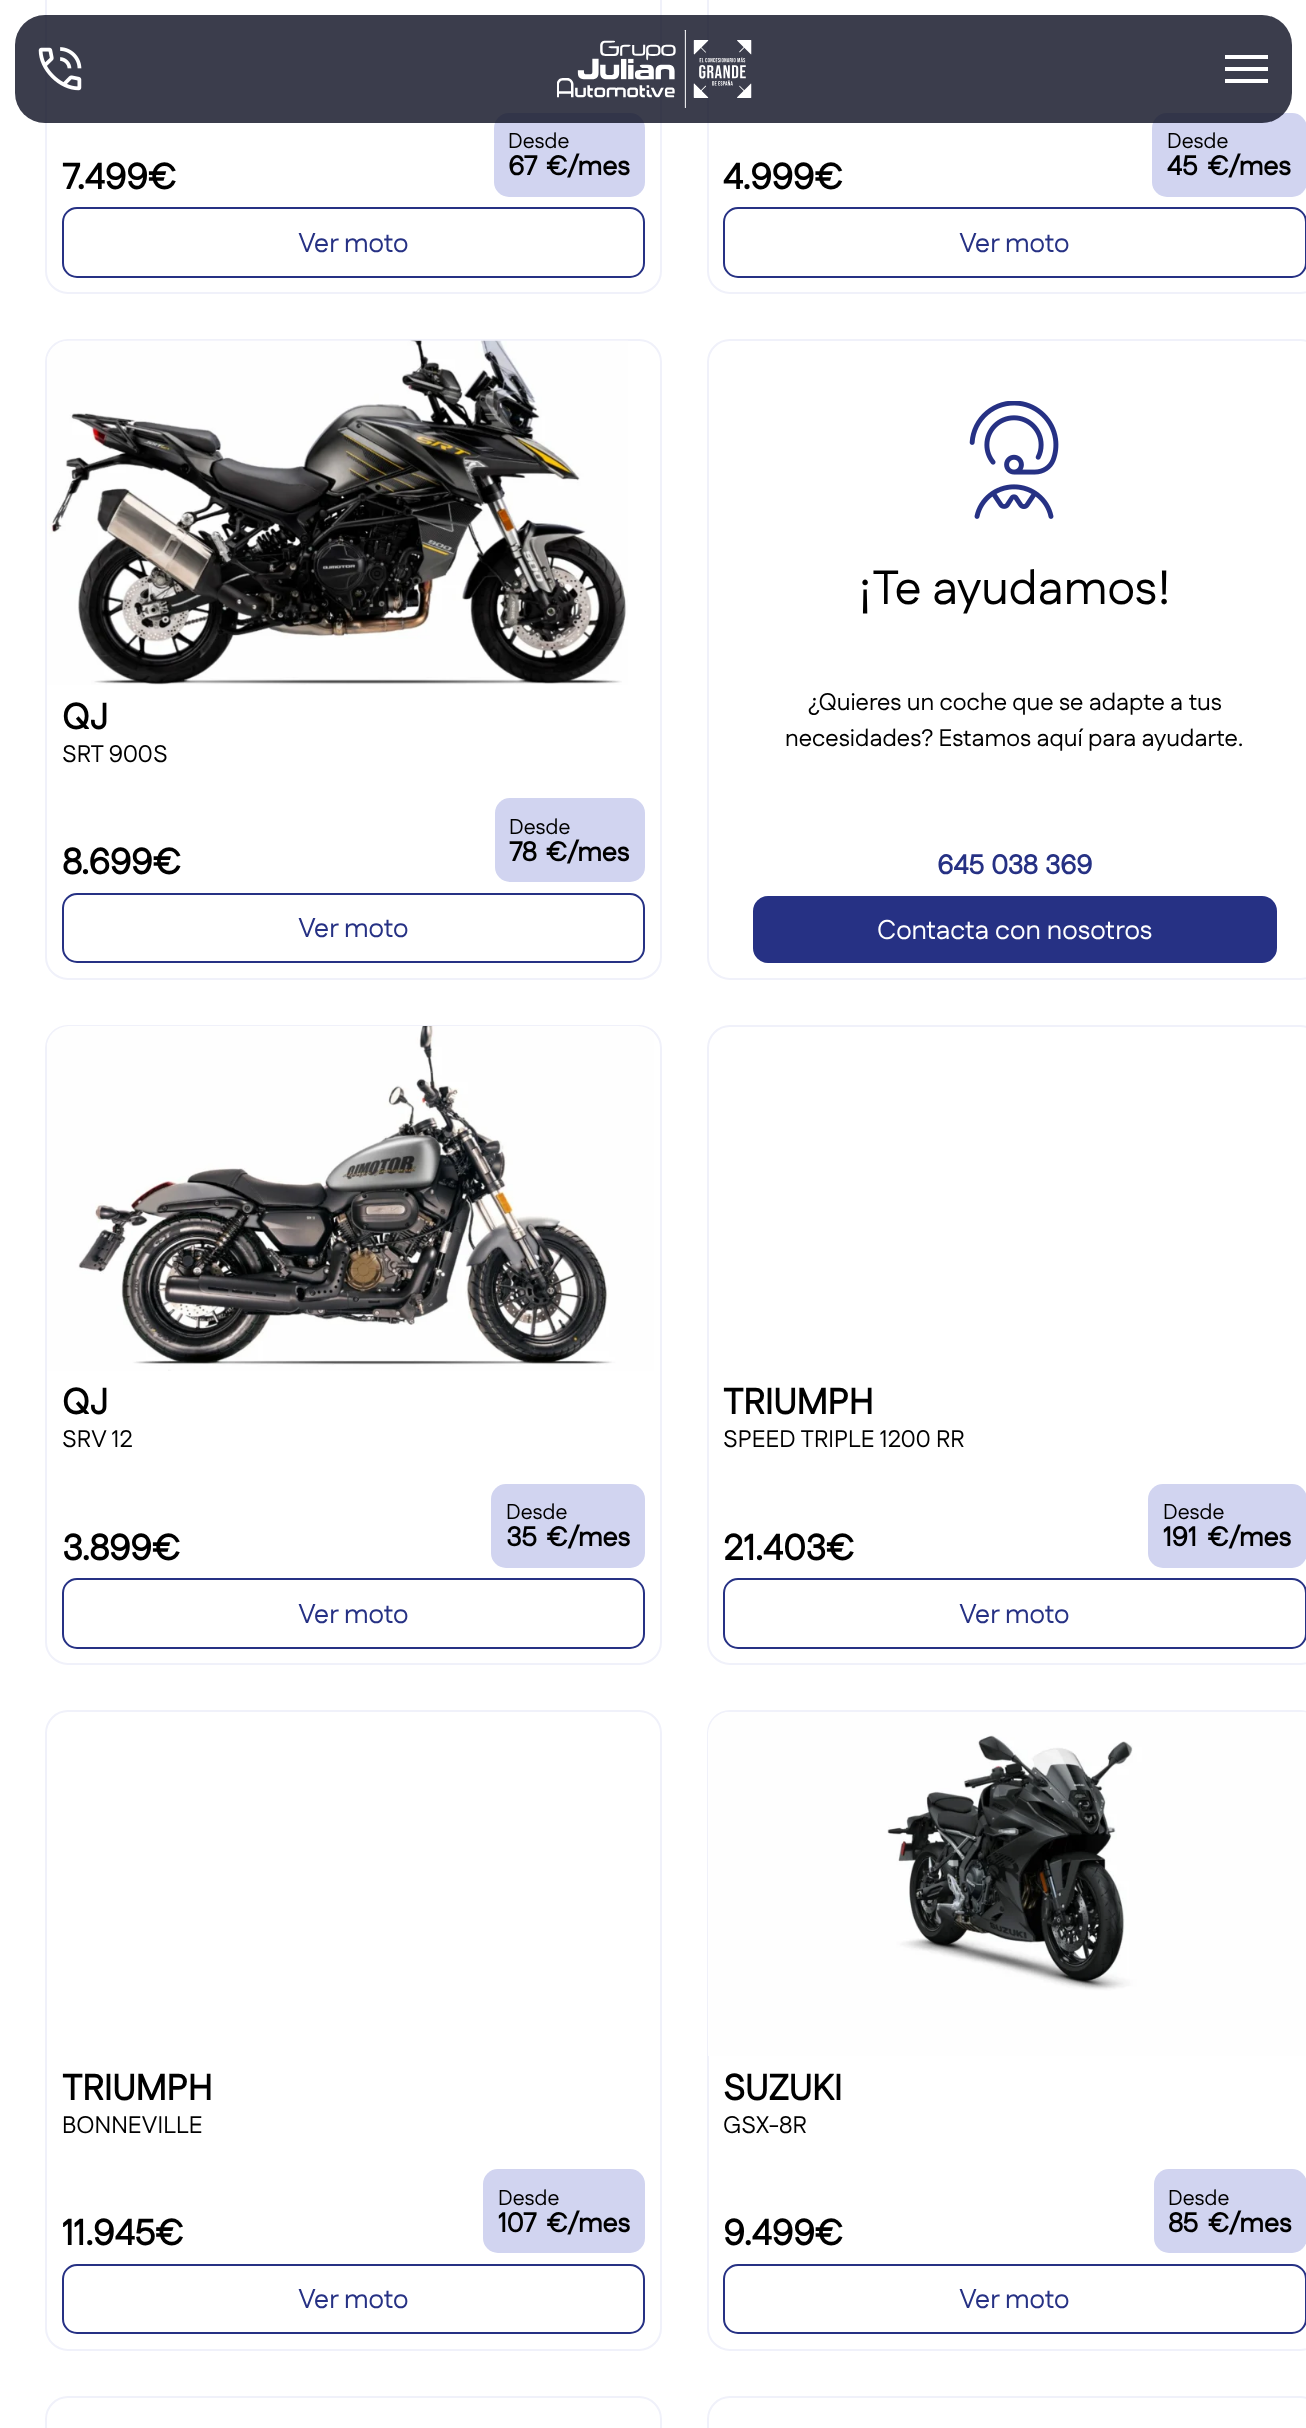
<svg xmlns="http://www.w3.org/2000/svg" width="1306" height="2428">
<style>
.a{font:bold 36px Fustat;fill:#000}
.b{font:21.5px Fustat;fill:#000}
.c{font:bold 27px Fustat;fill:#000}
.d{font:27px Fustat;fill:#263184}
.e{font:24px Fustat;fill:#000}
.f{font:48px Fustat;fill:#000}
.g{font:bold 27px Fustat;fill:#263184}
.h{font:27px Fustat;fill:#fff}
</style>
<rect width="100%" height="100%" fill="#fff"/>
<rect fill="none" stroke="#f0f1fa" stroke-width="2" x="46" y="-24" width="615" height="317" rx="22"/>
<rect fill="#d1d4f0" x="494" y="113" width="151" height="84" rx="15"/>
<rect fill="none" stroke="#f0f1fa" stroke-width="2" x="708" y="-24" width="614" height="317" rx="22"/>
<rect fill="#d1d4f0" x="1152" y="113" width="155" height="84" rx="15"/>
<rect fill="#0a0c1fcc" x="15" y="15" width="1277" height="108" rx="30"/>
<image href="1.png" x="38" y="47" width="44" height="44"/>
<image href="2.png" x="557" y="30" width="195" height="78"/>
<path fill="#fff" d="M1225 83v-4h43v4zm0-12v-4h43v4zm0-12v-4h43v4z"/>
<rect fill="none" stroke="#263184" stroke-width="2" x="63" y="208" width="581" height="69" rx="14"/>
<rect fill="none" stroke="#263184" stroke-width="2" x="724" y="208" width="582" height="69" rx="14"/>
<rect fill="none" stroke="#f0f1fa" stroke-width="2" x="46" y="340" width="615" height="639" rx="22"/>
<image href="3.png" x="47" y="340" width="581" height="345"/>
<rect fill="#d1d4f0" x="495" y="798" width="150" height="84" rx="15"/>
<rect fill="none" stroke="#263184" stroke-width="2" x="63" y="894" width="581" height="68" rx="14"/>
<rect fill="none" stroke="#f0f1fa" stroke-width="2" x="708" y="340" width="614" height="639" rx="22"/>
<image href="4.png" x="969" y="401" width="90" height="118"/>
<rect fill="#263184" x="753" y="896" width="524" height="67" rx="15"/>
<rect fill="none" stroke="#f0f1fa" stroke-width="2" x="46" y="1026" width="615" height="638" rx="22"/>
<image href="5.png" x="47" y="1026" width="607" height="345"/>
<rect fill="#d1d4f0" x="491" y="1484" width="154" height="84" rx="15"/>
<rect fill="none" stroke="#263184" stroke-width="2" x="63" y="1579" width="581" height="69" rx="14"/>
<rect fill="none" stroke="#f0f1fa" stroke-width="2" x="708" y="1026" width="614" height="638" rx="22"/>
<rect fill="#d1d4f0" x="1148" y="1484" width="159" height="84" rx="15"/>
<rect fill="none" stroke="#263184" stroke-width="2" x="724" y="1579" width="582" height="69" rx="14"/>
<rect fill="none" stroke="#f0f1fa" stroke-width="2" x="46" y="1711" width="615" height="639" rx="22"/>
<rect fill="#d1d4f0" x="483" y="2169" width="162" height="84" rx="15"/>
<rect fill="none" stroke="#263184" stroke-width="2" x="63" y="2265" width="581" height="68" rx="14"/>
<rect fill="none" stroke="#f0f1fa" stroke-width="2" x="708" y="1711" width="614" height="639" rx="22"/>
<image href="6.png" x="708" y="1712" width="598" height="344"/>
<rect fill="#d1d4f0" x="1154" y="2169" width="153" height="84" rx="15"/>
<rect fill="none" stroke="#263184" stroke-width="2" x="724" y="2265" width="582" height="68" rx="14"/>
<rect fill="none" stroke="#f0f1fa" stroke-width="2" x="46" y="2397" width="615" height="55" rx="22"/>
<rect fill="none" stroke="#f0f1fa" stroke-width="2" x="708" y="2397" width="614" height="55" rx="22"/>
<text class="a" x="62" y="189">7.499€</text>
<text class="b" x="508" y="148">Desde</text>
<text class="c" x="508" y="175" word-spacing="3">67 €/mes</text>
<text class="d" x="298" y="252">Ver moto</text>
<text class="a" x="723" y="189">4.999€</text>
<text class="b" x="1167" y="148">Desde</text>
<text class="c" x="1167" y="175" word-spacing="4">45 €/mes</text>
<text class="d" x="959" y="252">Ver moto</text>
<text class="a" x="62" y="729">QJ</text>
<text class="e" x="62" y="762">SRT 900S</text>
<text class="a" x="62" y="874">8.699€</text>
<text class="b" x="509" y="834">Desde</text>
<text class="c" x="509" y="861" word-spacing="3">78 €/mes</text>
<text class="d" x="298" y="937">Ver moto</text>
<text class="f" x="858" y="604">¡Te ayudamos!</text>
<text class="e" x="808" y="710">¿Quieres un coche que se adapte a tus</text>
<text class="e" x="785" y="746">necesidades? Estamos aquí para ayudarte.</text>
<text class="g" x="937" y="874" word-spacing="1">645 038 369</text>
<text class="h" x="877" y="939">Contacta con nosotros</text>
<text class="a" x="62" y="1414">QJ</text>
<text class="e" x="62" y="1447">SRV 12</text>
<text class="a" x="62" y="1560">3.899€</text>
<text class="b" x="506" y="1519">Desde</text>
<text class="c" x="506" y="1546" word-spacing="4">35 €/mes</text>
<text class="d" x="298" y="1623">Ver moto</text>
<text class="a" x="723" y="1414">TRIUMPH</text>
<text class="e" x="723" y="1447">SPEED TRIPLE 1200 RR</text>
<text class="a" x="723" y="1560">21.403€</text>
<text class="b" x="1163" y="1519">Desde</text>
<text class="c" x="1163" y="1546" word-spacing="5">191 €/mes</text>
<text class="d" x="959" y="1623">Ver moto</text>
<text class="a" x="62" y="2100">TRIUMPH</text>
<text class="e" x="62" y="2133">BONNEVILLE</text>
<text class="a" x="62" y="2245">11.945€</text>
<text class="b" x="498" y="2205">Desde</text>
<text class="c" x="498" y="2232" word-spacing="4">107 €/mes</text>
<text class="d" x="298" y="2308">Ver moto</text>
<text class="a" x="723" y="2100">SUZUKI</text>
<text class="e" x="723" y="2133">GSX-8R</text>
<text class="a" x="723" y="2245">9.499€</text>
<text class="b" x="1168" y="2205">Desde</text>
<text class="c" x="1168" y="2232" word-spacing="4">85 €/mes</text>
<text class="d" x="959" y="2308">Ver moto</text>
</svg>
